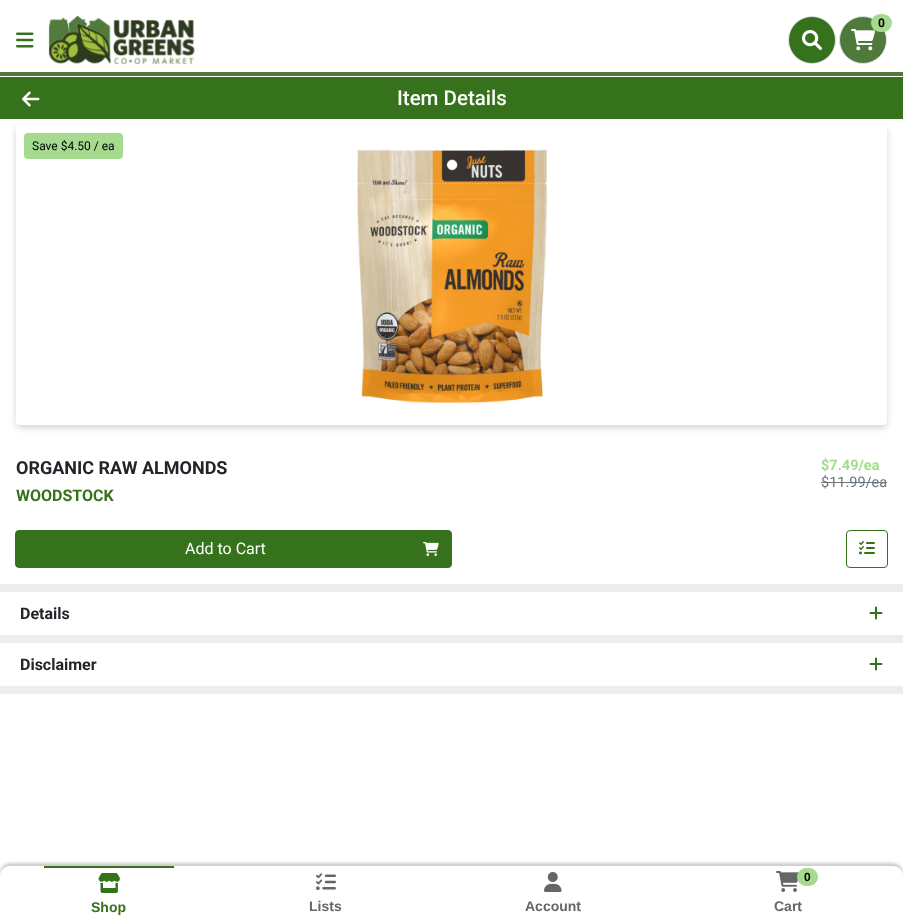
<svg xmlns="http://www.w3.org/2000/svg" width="903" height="922">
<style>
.a{font:bold 12px Roboto;fill:#000}
.b{font:500 20.5px Roboto;fill:#fff}
.c{font:12px Roboto;fill:#000}
.d{font:bold 18px Roboto;fill:#212529}
.e{font:bold 16px Roboto;fill:#36711c}
.f{font:bold 14.5px Roboto;fill:#a5da8f}
.g{font:14.5px Roboto;fill:#6c757d}
.h{font:16px Roboto;fill:#fff}
.i{font:bold 16px Roboto;fill:#212529}
.j{font:bold 14px Liberation Sans;fill:#36711c}
.k{font:bold 14px Liberation Sans;fill:#666}
.l{font:bold 12px Liberation Sans;fill:#000}
</style>
<rect width="100%" height="100%" fill="#fff"/>
<path fill="#4f7a3c" d="M0 72h903v4H0z"/>
<image href="1.png" x="48" y="16" width="147" height="48"/>
<circle fill="#36711c" stroke="#dee2e6" cx="812" cy="40" r="23.5"/>
<image href="2.png" x="802" y="30" width="20" height="20"/>
<circle fill="#4f7a3c" stroke="#dee2e6" cx="863" cy="40" r="23.5"/>
<image href="3.png" x="851" y="29" width="24" height="22"/>
<rect fill="#a5da8f" x="871" y="14" width="21" height="18" rx="9"/>
<image href="4.png" x="16" y="32" width="18" height="16"/>
<rect fill="#00000029" filter="blur(3px)" x="16" y="128" width="871" height="300" rx="4"/>
<path fill="#36711c" d="M0 77h903v42H0z"/>
<image href="5.png" x="22" y="91" width="18" height="16"/>
<rect fill="#fff" x="16" y="125" width="871" height="300" rx="4"/>
<image href="6.png" x="357" y="149" width="190" height="255"/>
<rect fill="#a5da8f" x="24" y="133" width="99" height="26" rx="4"/>
<path fill="#6c757d" d="M821 482h66v1H821z"/>
<rect fill="#36711c" stroke="#36711c" x="15.5" y="530.5" width="436" height="37" rx="3.5"/>
<image href="7.png" x="423" y="542" width="16" height="14"/>
<rect fill="none" stroke="#36711c" x="846.5" y="530.5" width="41" height="37" rx="3.5"/>
<image href="8.png" x="859" y="541" width="16" height="14"/>
<path fill="#ecedee" d="M0 584h903v8H0z"/>
<image href="9.png" x="869" y="606" width="14" height="14"/>
<path fill="#ecedee" d="M0 635h903v59H0z"/>
<path fill="#fff" d="M0 643h903v43H0z"/>
<image href="9.png" x="869" y="657" width="14" height="14"/>
<rect fill="#00000033" filter="blur(1.5px)" y="863" width="903" height="56" rx="10"/>
<path fill="#fff" d="M10 866h883c5.5 0 10 4.5 10 10v46h-903v-46c0-5.5 4.5-10 10-10z"/>
<path fill="#36711c" d="M44 866h130v2H44z"/>
<image href="10.png" x="98" y="873" width="22" height="20"/>
<image href="11.png" x="316" y="873" width="20" height="18"/>
<image href="12.png" x="544" y="872" width="18" height="20"/>
<image href="13.png" x="776" y="871" width="23" height="21"/>
<rect fill="#a5da8f" x="797" y="868" width="21" height="18" rx="9"/>
<text class="a" x="878" y="27">0</text>
<text class="b" x="397" y="105">Item Details</text>
<text class="c" x="32" y="150">Save $4.50 / ea</text>
<text class="d" x="16" y="474">ORGANIC RAW ALMONDS</text>
<text class="e" x="16" y="501">WOODSTOCK</text>
<text class="f" x="821" y="470">$7.49/ea</text>
<text class="g" x="821" y="487">$11.99/ea</text>
<text class="h" x="185" y="554">Add to Cart</text>
<text class="i" x="20" y="619">Details</text>
<text class="i" x="20" y="670">Disclaimer</text>
<text class="j" x="91" y="912">Shop</text>
<text class="k" x="309" y="911">Lists</text>
<text class="k" x="525" y="911">Account</text>
<text class="l" x="804" y="881">0</text>
<text class="k" x="774" y="911">Cart</text>
</svg>
